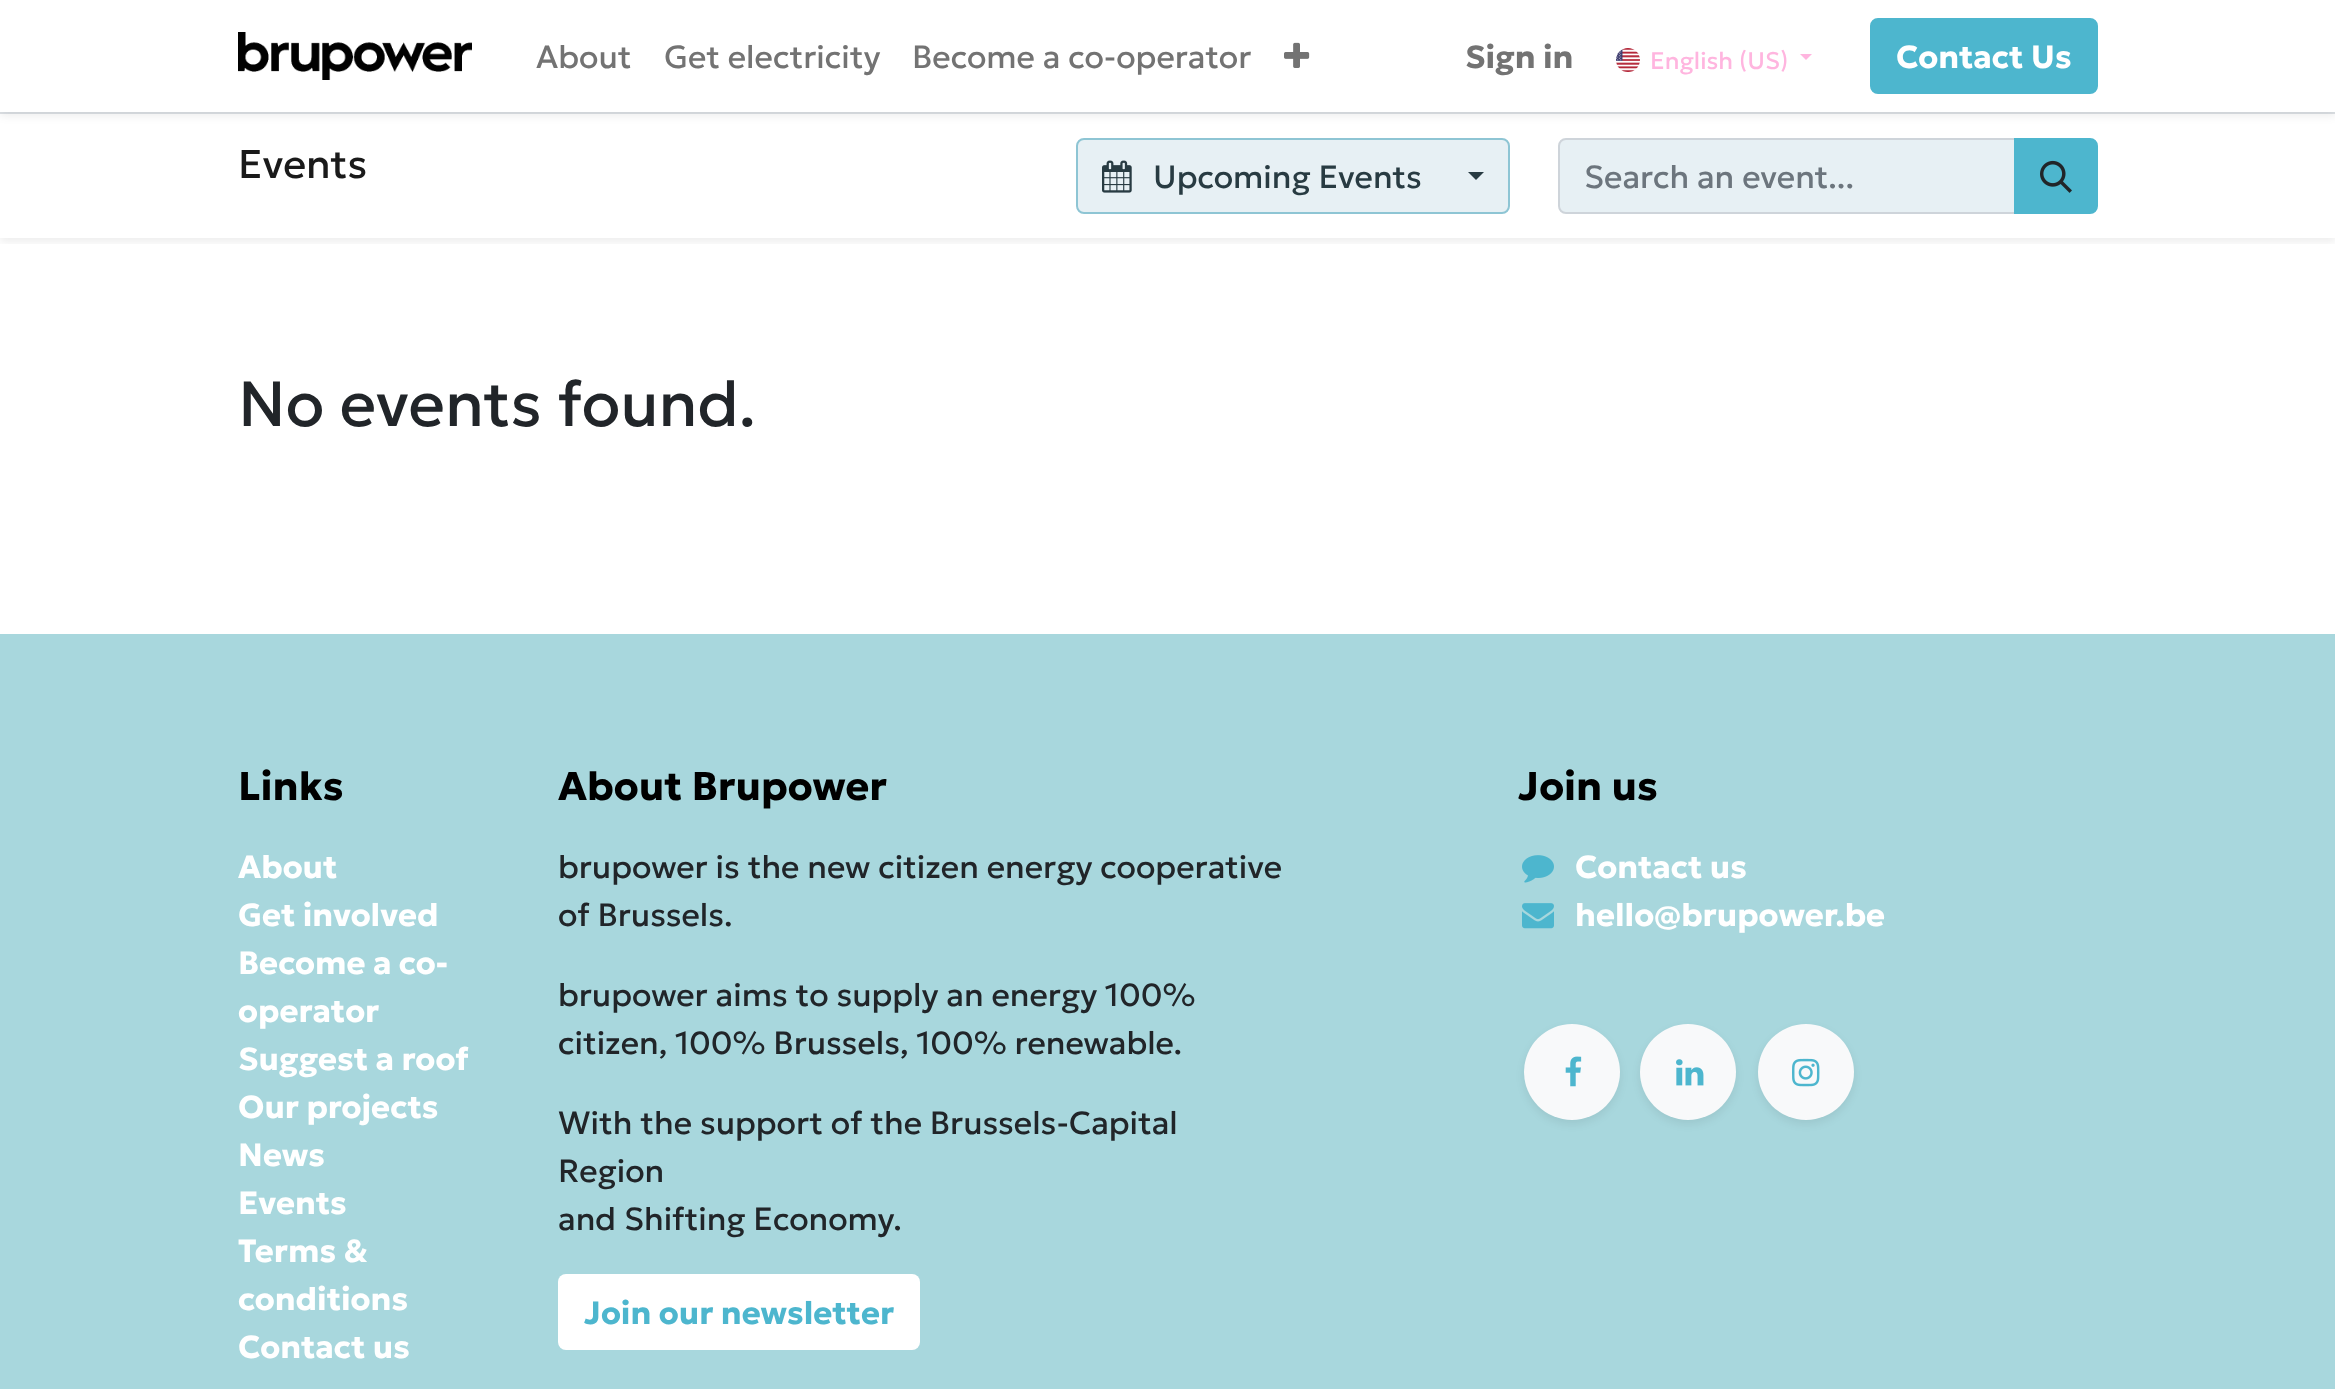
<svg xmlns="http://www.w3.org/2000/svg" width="2335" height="1389">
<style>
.a{font:32px Geologica;fill:#737373}
.b{font:bold 32px Geologica;fill:#737373}
.c{font:24px Geologica;fill:#ffb5df}
.d{font:bold 32px Geologica;fill:#fff}
.e{font:40px Geologica;fill:#1a1a1a}
.f{font:32px Geologica;fill:#283b42}
.g{font:32px Geologica;fill:#6c757d}
.h{font:63.5px Geologica;fill:#212529}
.i{font:bold 40px Geologica;fill:#000}
.j{font:32px Geologica;fill:#212529}
.k{font:bold 32px Geologica;fill:#4db6ce}
</style>
<defs>
<clipPath id="clip1"><path d="M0 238h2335v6H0z"/></clipPath>
</defs>
<rect width="100%" height="100%" fill="#fff"/>
<g clip-path="url(#clip1)">
<path fill="#00000012" filter="blur(4px)" d="M0 116h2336v126H0z"/>
</g>
<path fill="#dee2e6" d="M0 112h2335v2H0z"/>
<path fill="#00000012" filter="blur(4px)" d="M0 4h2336v112H0z"/>
<path fill="#fff" d="M0 0h2335v112H0z"/>
<image href="1.png" x="238" y="32" width="234" height="48"/>
<image href="2.png" x="1284" y="42" width="26" height="26"/>
<image href="3.png" x="1616" y="48" width="24" height="24"/>
<path fill="#ffb5df" d="M1800 54h12l-6 6z"/>
<rect fill="#4db6ce" stroke="#4db6ce" stroke-width="2" x="1871" y="19" width="226" height="74" rx="7"/>
<rect fill="#e7f0f4" stroke="#8ec5d4" stroke-width="2" x="1077" y="139" width="432" height="74" rx="7"/>
<image href="4.png" x="1102" y="160" width="30" height="33"/>
<path fill="#283b42" d="M1468 172h16l-8 8z"/>
<path fill="#e7f0f4" stroke="#ced4da" stroke-width="2" d="M1566 139h449v74h-449c-4 0-7-3-7-7v-60c0-4 3-7 7-7z"/>
<path fill="#4db6ce" stroke="#4db6ce" stroke-width="2" d="M2015 139h75c4 0 7 3 7 7v60c0 4-3 7-7 7h-75z"/>
<image href="5.png" x="2040" y="160" width="32" height="33"/>
<path fill="#a8d7dd" d="M0 634h2335v755H0z"/>
<rect fill="#fff" x="558" y="1274" width="362" height="76" rx="8"/>
<image href="6.png" x="1522" y="855" width="32" height="28"/>
<image href="7.png" x="1522" y="903" width="32" height="26"/>
<rect fill="#00000012" filter="blur(4px)" x="1524" y="1028" width="96" height="96" rx="48"/>
<circle fill="#f8f9fa" cx="1572" cy="1072" r="48"/>
<image href="8.png" x="1565" y="1056" width="17" height="31"/>
<rect fill="#00000012" filter="blur(4px)" x="1640" y="1028" width="96" height="96" rx="48"/>
<circle fill="#f8f9fa" cx="1688" cy="1072" r="48"/>
<image href="9.png" x="1676" y="1059" width="28" height="27"/>
<rect fill="#00000012" filter="blur(4px)" x="1758" y="1028" width="96" height="96" rx="48"/>
<circle fill="#f8f9fa" cx="1806" cy="1072" r="48"/>
<image href="10.png" x="1792" y="1058" width="28" height="29"/>
<text class="a" x="536" y="68">About</text>
<text class="a" x="664" y="68">Get electricity</text>
<text class="a" x="912" y="68">Become a co-operator</text>
<text class="b" x="1465" y="68">Sign in</text>
<text class="c" x="1650" y="69">English (US)</text>
<text class="d" x="1896" y="68">Contact Us</text>
<text class="e" x="238" y="178">Events</text>
<text class="f" x="1153" y="188">Upcoming Events</text>
<text class="g" x="1584" y="188">Search an event...</text>
<text class="h" x="238" y="426">No events found.</text>
<text class="i" x="238" y="800">Links</text>
<text class="d" x="238" y="878">About</text>
<text class="d" x="238" y="926">Get involved</text>
<text class="d" x="238" y="974">Become a co-</text>
<text class="d" x="238" y="1022">operator</text>
<text class="d" x="238" y="1070">Suggest a roof</text>
<text class="d" x="238" y="1118">Our projects</text>
<text class="d" x="238" y="1166">News</text>
<text class="d" x="238" y="1214">Events</text>
<text class="d" x="238" y="1262">Terms &amp;</text>
<text class="d" x="238" y="1310">conditions</text>
<text class="d" x="238" y="1358">Contact us</text>
<text class="i" x="558" y="800">About Brupower</text>
<text class="j" x="558" y="878">brupower is the new citizen energy cooperative</text>
<text class="j" x="558" y="926">of Brussels.</text>
<text class="j" x="558" y="1006">brupower aims to supply an energy 100%</text>
<text class="j" x="558" y="1054">citizen, 100% Brussels, 100% renewable.</text>
<text class="j" x="558" y="1134">With the support of the Brussels-Capital</text>
<text class="j" x="558" y="1182">Region</text>
<text class="j" x="558" y="1230">and Shifting Economy.</text>
<text class="k" x="584" y="1324">Join our newsletter</text>
<text class="i" x="1518" y="800">Join us</text>
<text class="d" x="1575" y="878">Contact us</text>
<text class="d" x="1575" y="926">hello@brupower.be</text>
</svg>
